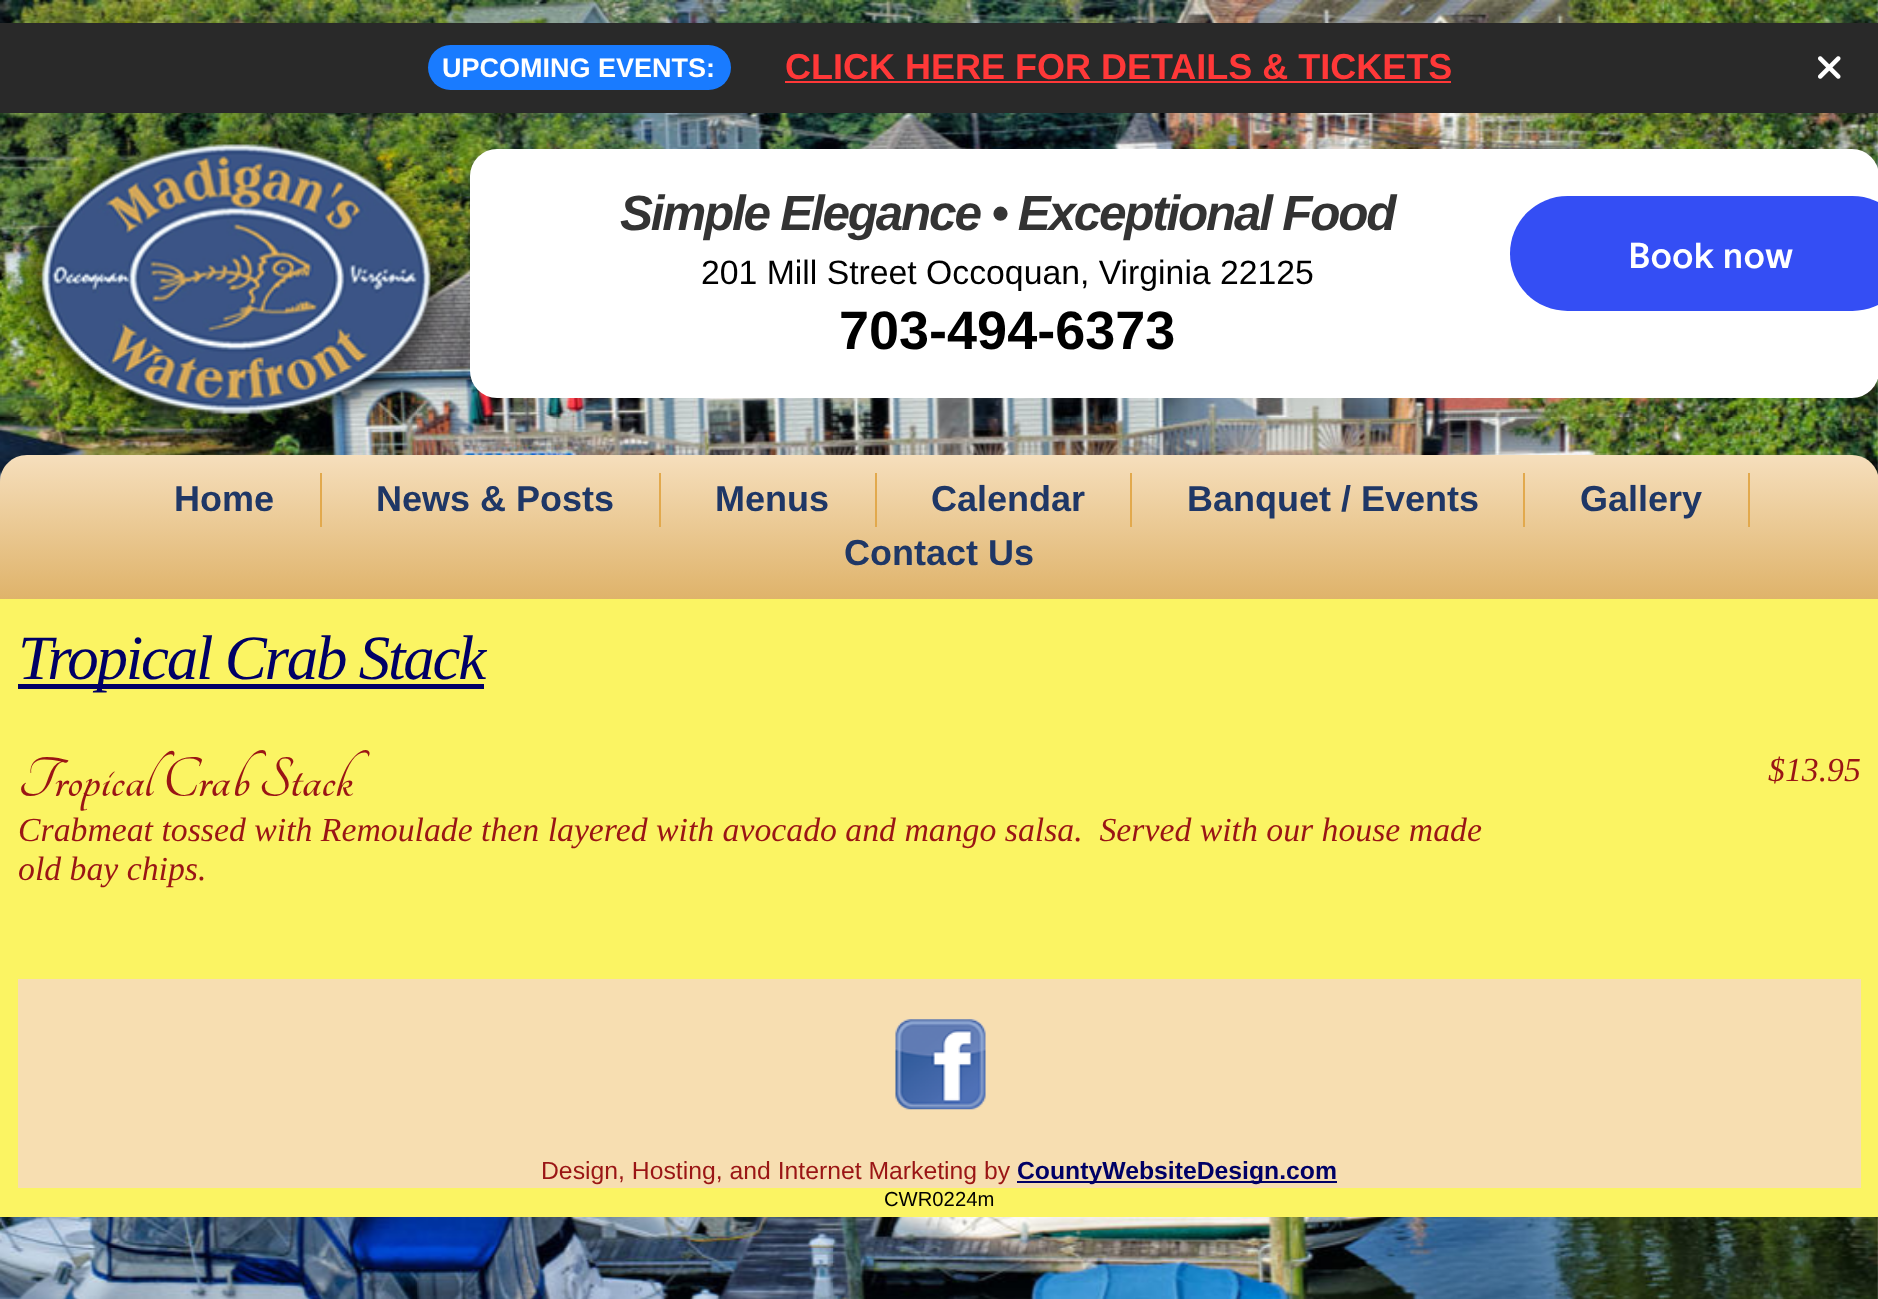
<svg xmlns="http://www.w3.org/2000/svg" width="1878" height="1299">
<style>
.a{font:bold 27px Liberation Sans;fill:#fff}
.b{font:bold 36px Liberation Sans;fill:#ff3838}
.c{font:italic bold 49.5px Liberation Sans;letter-spacing:-2.25px;fill:#333}
.d{font:33.75px Liberation Sans;fill:#000}
.e{font:bold 54px Liberation Sans;fill:#000}
.f{font:500 36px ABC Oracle;fill:#fff}
.g{font:bold 36px Liberation Sans;fill:#1f3766}
.h{font:italic 63px Liberation Serif;letter-spacing:-2.25px;fill:#006}
.i{font:bold 60.75px Tangerine;fill:#9a1515}
.j{font:italic 33.75px Liberation Serif;fill:#9a1515}
.k{font:24.75px Liberation Sans;fill:#9a1515}
.l{font:bold 24.75px Liberation Sans;fill:#006}
.m{font:20.25px Liberation Sans;fill:#000}
</style>
<defs>
<linearGradient id="g1" gradientUnits="userSpaceOnUse" x1="939" y1="454" x2="939" y2="599"><stop offset="0" stop-color="#f6dfbd"/><stop offset="1" stop-color="#dfb36a"/></linearGradient>
</defs>
<rect width="100%" height="100%" fill="#fff"/>
<image href="1.png" x="0" y="0" width="1878" height="1299"/>
<path fill="#292929" d="M0 23h1878v90H0z"/>
<rect fill="#197bff" x="428" y="45" width="303" height="45" rx="22.5"/>
<path fill="#ff3838" d="M785 81h666v2H785z"/>
<image href="2.png" x="1818" y="56" width="23" height="23"/>
<image href="3.png" x="13" y="122" width="442" height="321"/>
<rect fill="#fff" x="470" y="149" width="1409" height="249" rx="27"/>
<rect fill="#344ef4" x="1510" y="196" width="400" height="115" rx="57.5"/>
<path fill="url(#g1)" d="M27 455h1825c15 0 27 12 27 27v117h-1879v-117c0-15 12-27 27-27z"/>
<path fill="#e2a94d" d="M320 473h2v54H320z"/>
<path fill="#e2a94d" d="M659 473h2v54H659z"/>
<path fill="#e2a94d" d="M875 473h2v54H875z"/>
<path fill="#e2a94d" d="M1130 473h2v54H1130z"/>
<path fill="#e2a94d" d="M1523 473h2v54H1523z"/>
<path fill="#e2a94d" d="M1748 473h2v54H1748z"/>
<path fill="#fbf463" d="M0 599h1878v618H0z"/>
<path fill="#006" d="M18 684h466v5H18z"/>
<path fill="#f7deb1" d="M18 979h1843v209H18z"/>
<image href="4.png" x="895" y="1019" width="91" height="91"/>
<path fill="#006" d="M1017 1181h320v2H1017z"/>
<text class="a" x="442" y="77">UPCOMING EVENTS:</text>
<text class="b" x="785" y="79">CLICK HERE FOR DETAILS &amp; TICKETS</text>
<text class="c" x="620" y="230">Simple Elegance • Exceptional Food</text>
<text class="d" x="701" y="284">201 Mill Street Occoquan, Virginia 22125</text>
<text class="e" x="839" y="349">703-494-6373</text>
<text class="f" x="1628" y="268">Book now</text>
<text class="g" x="174" y="511">Home</text>
<text class="g" x="376" y="511">News &amp; Posts</text>
<text class="g" x="715" y="511">Menus</text>
<text class="g" x="931" y="511">Calendar</text>
<text class="g" x="1187" y="511">Banquet / Events</text>
<text class="g" x="1580" y="511">Gallery</text>
<text class="g" x="844" y="565">Contact Us</text>
<text class="h" x="18" y="679">Tropical Crab Stack</text>
<text class="i" x="18" y="796">Tropical Crab Stack</text>
<text class="j" x="1768" y="781">$13.95</text>
<text class="j" xml:space="preserve" x="18" y="841">Crabmeat tossed with Remoulade then layered with avocado and mango salsa.  Served with our house made</text>
<text class="j" x="18" y="880">old bay chips.</text>
<text class="k" x="541" y="1179">Design, Hosting, and Internet Marketing by</text>
<text class="l" x="1017" y="1179">CountyWebsiteDesign.com</text>
<text class="m" x="884" y="1206">CWR0224m</text>
</svg>
